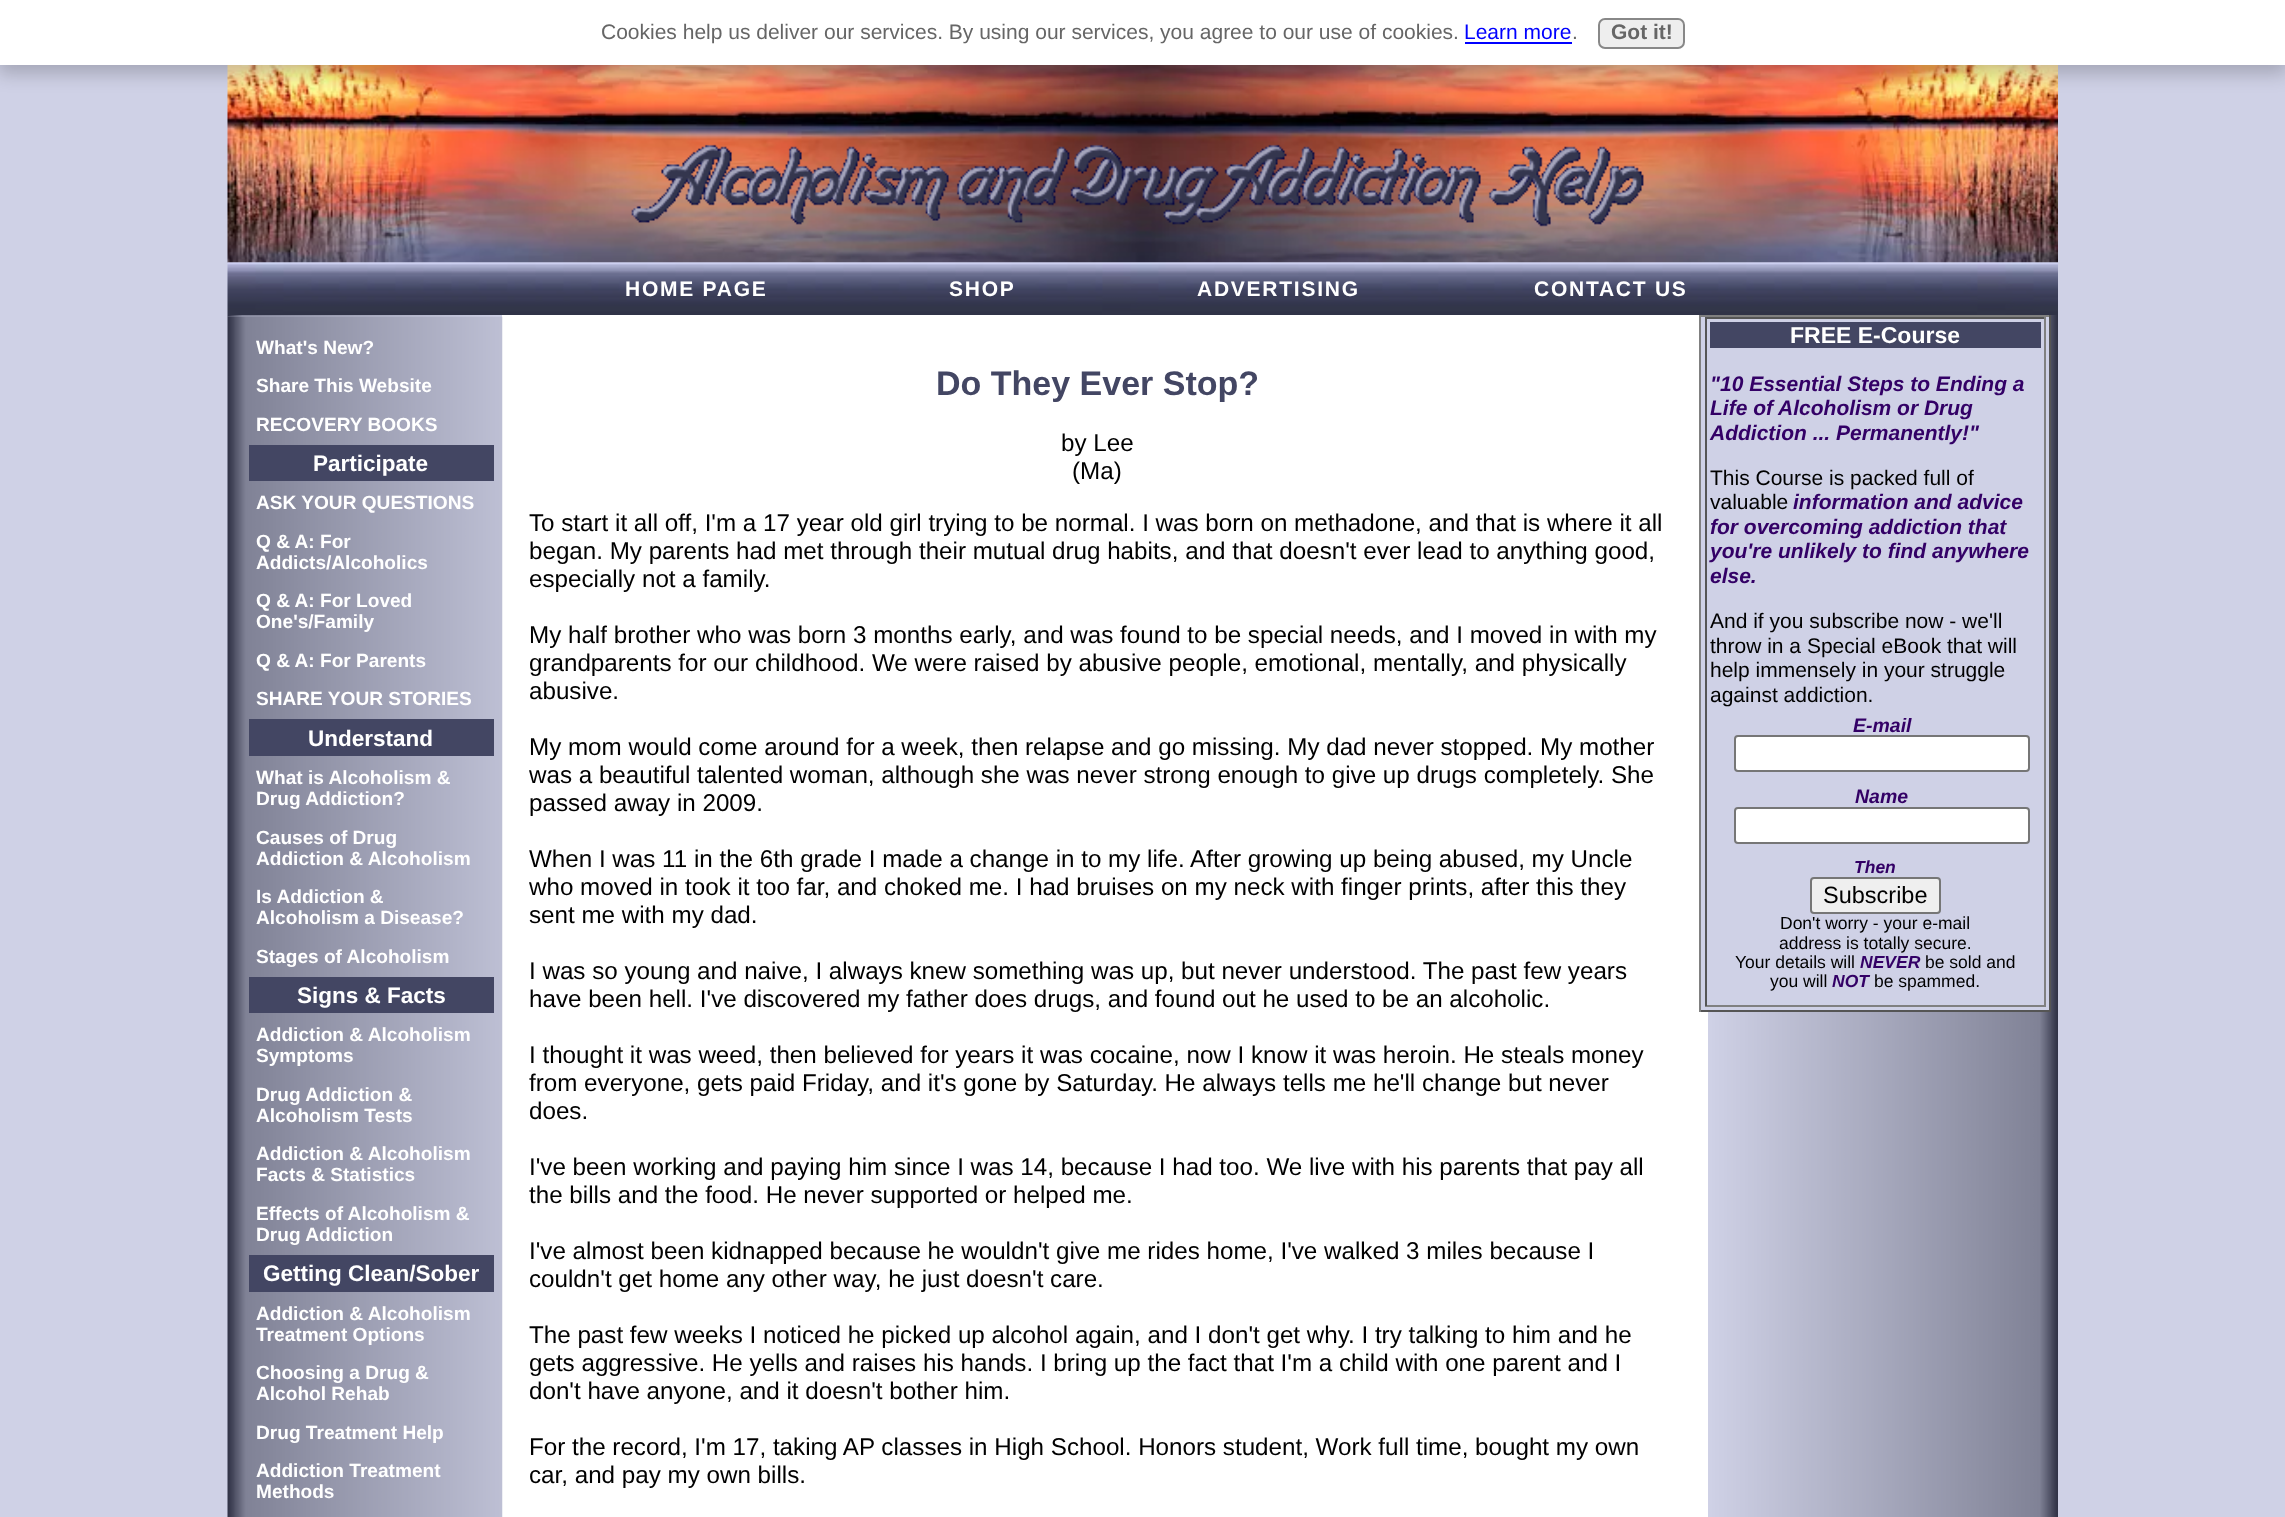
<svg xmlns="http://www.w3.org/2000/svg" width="2285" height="1517">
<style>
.a{font:21px Liberation Sans;fill:#666}
.b{font:21px Liberation Sans;fill:#00f}
.c{font:bold 21px Liberation Sans;fill:#666}
.d{font:bold 21px Liberation Sans;letter-spacing:1.75px;fill:#fff}
.e{font:bold 19.1px Liberation Sans;fill:#fff}
.f{font:bold 22.5px Liberation Sans;fill:#fff}
.g{font:bold 34px Liberation Sans;fill:#434663}
.h{font:24.2px Liberation Sans;fill:#000}
.i{font:bold 23px Liberation Sans;fill:#fff}
.j{font:italic bold 21px Liberation Sans;fill:#306}
.k{font:21px Liberation Sans;fill:#000}
.l{font:italic bold 19.5px Liberation Sans;fill:#306}
.m{font:italic bold 17.5px Liberation Sans;fill:#306}
.n{font:23.5px Liberation Sans;fill:#000}
.o{font:17.5px Liberation Sans;fill:#000}
</style>
<rect width="100%" height="100%" fill="#cfd1e6"/>
<image href="1.png" x="227" y="65" width="1831" height="198"/>
<path fill="#00000033" filter="blur(9px)" d="M-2 5h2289v69H-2z"/>
<path fill="#fff" d="M0 0h2285v65H0z"/>
<path fill="#00f" d="M1465 42h107v2H1465z"/>
<rect fill="#eee" stroke="#888" stroke-width="2" x="1599" y="19" width="85" height="29" rx="6"/>
<image href="2.png" x="631" y="144" width="1013" height="83"/>
<image href="3.png" x="227" y="262" width="1831" height="53"/>
<image href="5.png" x="227" y="315" width="275" height="2"/>
<path fill="#fff" d="M502 315h1206v1202H502z"/>
<image href="4.png" x="227" y="316" width="276" height="1201"/>
<path fill="#434663" d="M249 445h245v36H249z"/>
<path fill="#434663" d="M249 719h245v37H249z"/>
<path fill="#434663" d="M249 977h245v36H249z"/>
<path fill="#434663" d="M249 1255h245v37H249z"/>
<image href="6.png" x="1708" y="315" width="350" height="1202"/>
<path fill="#cfd1e6" d="M1701 317h348v693H1701z"/>
<path fill="#808080" d="M1699 315h352v2H1699z"/>
<path fill="#555" d="M2049 315h2v697H2049z"/>
<path fill="#555" d="M1699 1010h352v2H1699z"/>
<path fill="#808080" d="M1699 315h2v697H1699z"/>
<path fill="#555" d="M1705 317h341v2H1705z"/>
<path fill="#808080" d="M2044 317h2v689H2044z"/>
<path fill="#808080" d="M1705 1005h341v2H1705z"/>
<path fill="#555" d="M1705 317h2v689H1705z"/>
<path fill="#434663" d="M1710 322h331v26H1710z"/>
<rect fill="#fff" stroke="#767676" stroke-width="2" x="1735" y="736" width="294" height="35" rx="3"/>
<rect fill="#fff" stroke="#767676" stroke-width="2" x="1735" y="808" width="294" height="35" rx="3"/>
<rect fill="#efefef" stroke="#767676" stroke-width="2" x="1811" y="878" width="129" height="35" rx="3"/>
<text class="a" x="601" y="39">Cookies help us deliver our services. By using our services, you agree to our use of cookies.</text>
<text class="b" x="1464" y="39">Learn more</text>
<text class="a" x="1572" y="39">.</text>
<text class="c" x="1611" y="39">Got it!</text>
<text class="d" x="625" y="296">HOME PAGE</text>
<text class="d" x="949" y="296">SHOP</text>
<text class="d" x="1197" y="296">ADVERTISING</text>
<text class="d" x="1534" y="296">CONTACT US</text>
<text class="e" x="256" y="354">What's New?</text>
<text class="e" x="256" y="392">Share This Website</text>
<text class="e" x="256" y="431">RECOVERY BOOKS</text>
<text class="f" x="313" y="471">Participate</text>
<text class="e" x="256" y="509">ASK YOUR QUESTIONS</text>
<text class="e" x="256" y="548">Q &amp; A: For</text>
<text class="e" x="256" y="569">Addicts/Alcoholics</text>
<text class="e" x="256" y="607">Q &amp; A: For Loved</text>
<text class="e" x="256" y="628">One's/Family</text>
<text class="e" x="256" y="667">Q &amp; A: For Parents</text>
<text class="e" x="256" y="705">SHARE YOUR STORIES</text>
<text class="f" x="308" y="746">Understand</text>
<text class="e" x="256" y="784">What is Alcoholism &amp;</text>
<text class="e" x="256" y="805">Drug Addiction?</text>
<text class="e" x="256" y="844">Causes of Drug</text>
<text class="e" x="256" y="865">Addiction &amp; Alcoholism</text>
<text class="e" x="256" y="903">Is Addiction &amp;</text>
<text class="e" x="256" y="924">Alcoholism a Disease?</text>
<text class="e" x="256" y="963">Stages of Alcoholism</text>
<text class="f" x="297" y="1003">Signs &amp; Facts</text>
<text class="e" x="256" y="1041">Addiction &amp; Alcoholism</text>
<text class="e" x="256" y="1062">Symptoms</text>
<text class="e" x="256" y="1101">Drug Addiction &amp;</text>
<text class="e" x="256" y="1122">Alcoholism Tests</text>
<text class="e" x="256" y="1160">Addiction &amp; Alcoholism</text>
<text class="e" x="256" y="1181">Facts &amp; Statistics</text>
<text class="e" x="256" y="1220">Effects of Alcoholism &amp;</text>
<text class="e" x="256" y="1241">Drug Addiction</text>
<text class="f" x="263" y="1281">Getting Clean/Sober</text>
<text class="e" x="256" y="1320">Addiction &amp; Alcoholism</text>
<text class="e" x="256" y="1341">Treatment Options</text>
<text class="e" x="256" y="1379">Choosing a Drug &amp;</text>
<text class="e" x="256" y="1400">Alcohol Rehab</text>
<text class="e" x="256" y="1439">Drug Treatment Help</text>
<text class="e" x="256" y="1477">Addiction Treatment</text>
<text class="e" x="256" y="1498">Methods</text>
<text class="g" x="936" y="395">Do They Ever Stop?</text>
<text class="h" x="1061" y="451">by Lee</text>
<text class="h" x="1072" y="479">(Ma)</text>
<text class="h" x="529" y="531">To start it all off, I'm a 17 year old girl trying to be normal. I was born on methadone, and that is where it all</text>
<text class="h" x="529" y="559">began. My parents had met through their mutual drug habits, and that doesn't ever lead to anything good,</text>
<text class="h" x="529" y="587">especially not a family.</text>
<text class="h" x="529" y="643">My half brother who was born 3 months early, and was found to be special needs, and I moved in with my</text>
<text class="h" x="529" y="671">grandparents for our childhood. We were raised by abusive people, emotional, mentally, and physically</text>
<text class="h" x="529" y="699">abusive.</text>
<text class="h" x="529" y="755">My mom would come around for a week, then relapse and go missing. My dad never stopped. My mother</text>
<text class="h" x="529" y="783">was a beautiful talented woman, although she was never strong enough to give up drugs completely. She</text>
<text class="h" x="529" y="811">passed away in 2009.</text>
<text class="h" x="529" y="867">When I was 11 in the 6th grade I made a change in to my life. After growing up being abused, my Uncle</text>
<text class="h" x="529" y="895">who moved in took it too far, and choked me. I had bruises on my neck with finger prints, after this they</text>
<text class="h" x="529" y="923">sent me with my dad.</text>
<text class="h" x="529" y="979">I was so young and naive, I always knew something was up, but never understood. The past few years</text>
<text class="h" x="529" y="1007">have been hell. I've discovered my father does drugs, and found out he used to be an alcoholic.</text>
<text class="h" x="529" y="1063">I thought it was weed, then believed for years it was cocaine, now I know it was heroin. He steals money</text>
<text class="h" x="529" y="1091">from everyone, gets paid Friday, and it's gone by Saturday. He always tells me he'll change but never</text>
<text class="h" x="529" y="1119">does.</text>
<text class="h" x="529" y="1175">I've been working and paying him since I was 14, because I had too. We live with his parents that pay all</text>
<text class="h" x="529" y="1203">the bills and the food. He never supported or helped me.</text>
<text class="h" x="529" y="1259">I've almost been kidnapped because he wouldn't give me rides home, I've walked 3 miles because I</text>
<text class="h" x="529" y="1287">couldn't get home any other way, he just doesn't care.</text>
<text class="h" x="529" y="1343">The past few weeks I noticed he picked up alcohol again, and I don't get why. I try talking to him and he</text>
<text class="h" x="529" y="1371">gets aggressive. He yells and raises his hands. I bring up the fact that I'm a child with one parent and I</text>
<text class="h" x="529" y="1399">don't have anyone, and it doesn't bother him.</text>
<text class="h" x="529" y="1455">For the record, I'm 17, taking AP classes in High School. Honors student, Work full time, bought my own</text>
<text class="h" x="529" y="1483">car, and pay my own bills.</text>
<text class="i" x="1790" y="343">FREE E-Course</text>
<text class="j" x="1710" y="391">"10 Essential Steps to Ending a</text>
<text class="j" x="1710" y="415">Life of Alcoholism or Drug</text>
<text class="j" x="1710" y="440">Addiction ... Permanently!"</text>
<text class="k" x="1710" y="485">This Course is packed full of</text>
<text class="k" x="1710" y="509">valuable</text>
<text class="j" x="1793" y="509">information and advice</text>
<text class="j" x="1710" y="534">for overcoming addiction that</text>
<text class="j" x="1710" y="558">you're unlikely to find anywhere</text>
<text class="j" x="1710" y="583">else.</text>
<text class="k" x="1710" y="628">And if you subscribe now - we'll</text>
<text class="k" x="1710" y="653">throw in a Special eBook that will</text>
<text class="k" x="1710" y="677">help immensely in your struggle</text>
<text class="k" x="1710" y="702">against addiction.</text>
<text class="l" x="1853" y="732">E-mail</text>
<text class="l" x="1855" y="803">Name</text>
<text class="m" x="1854" y="873">Then</text>
<text class="n" x="1823" y="903">Subscribe</text>
<text class="o" x="1780" y="929">Don't worry - your e-mail</text>
<text class="o" x="1779" y="949">address is totally secure.</text>
<text class="o" x="1735" y="968">Your details will</text>
<text class="m" x="1860" y="968">NEVER</text>
<text class="o" x="1925" y="968">be sold and</text>
<text class="o" x="1770" y="987">you will</text>
<text class="m" x="1832" y="987">NOT</text>
<text class="o" x="1874" y="987">be spammed.</text>
</svg>
